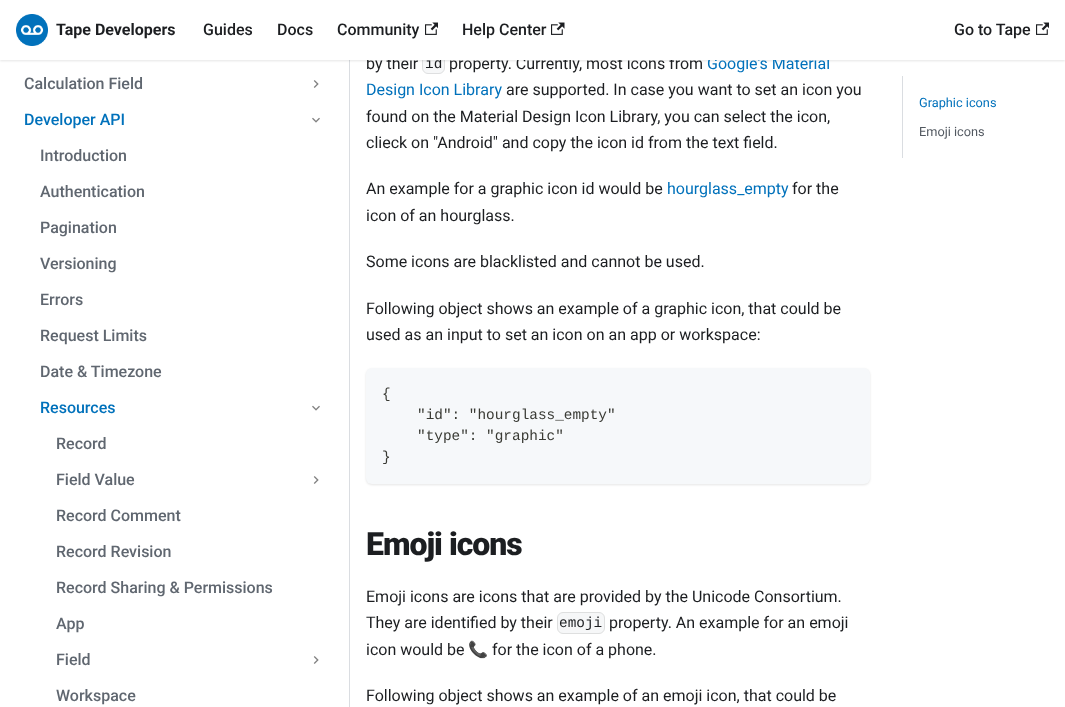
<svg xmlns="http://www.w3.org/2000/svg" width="1065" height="707">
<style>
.a{font:500 16px Roboto;fill:#606770}
.b{font:500 16px Roboto;fill:#0071bb}
.c{font:16px Roboto;fill:#1c1e21}
.d{font:14.4px Liberation Mono;fill:#1c1e21}
.e{font:16px Roboto;fill:#0071bb}
.f{font:bold 16px Roboto;fill:#1c1e21}
.g{font:500 16px Roboto;fill:#1c1e21}
.h{font:14.4px Liberation Mono;fill:#393a34}
.i{font:900 32px Roboto;letter-spacing:-1px;fill:#1c1e21}
.j{font:16px Noto Color Emoji;fill:#1c1e21}
.k{font:12.75px Roboto;fill:#0071bb}
.l{font:12.75px Roboto;fill:#525860}
</style>
<rect width="100%" height="100%" fill="#fff"/>
<path fill="#dadde1" d="M349 60h1v647H349z"/>
<rect fill="#f6f7f8" stroke="#dedfe0" x="422.5" y="53.5" width="22" height="20" rx="5.5"/>
<path fill="#0000001a" filter="blur(1px)" d="M0 1h1065v60H0z"/>
<image href="4.png" x="313" y="80" width="6" height="8"/>
<image href="5.png" x="312" y="117" width="8" height="6"/>
<image href="5.png" x="312" y="405" width="8" height="6"/>
<image href="4.png" x="313" y="476" width="6" height="8"/>
<image href="4.png" x="313" y="656" width="6" height="8"/>
<rect fill="#0000001a" filter="blur(1px)" x="366" y="369" width="504" height="116" rx="6"/>
<rect fill="#f6f8fa" x="366" y="368" width="504" height="116" rx="6"/>
<rect fill="#f6f7f8" stroke="#dedfdf" x="557.5" y="612.5" width="47" height="21" rx="5.5"/>
<path fill="#dadde1" d="M902 76h1v82H902z"/>
<text class="a" x="24" y="89">Calculation Field</text>
<text class="b" x="24" y="125">Developer API</text>
<text class="a" x="40" y="161">Introduction</text>
<text class="a" x="40" y="197">Authentication</text>
<text class="a" x="40" y="233">Pagination</text>
<text class="a" x="40" y="269">Versioning</text>
<text class="a" x="40" y="305">Errors</text>
<text class="a" x="40" y="341">Request Limits</text>
<text class="a" x="40" y="377">Date &amp; Timezone</text>
<text class="b" x="40" y="413">Resources</text>
<text class="a" x="56" y="449">Record</text>
<text class="a" x="56" y="485">Field Value</text>
<text class="a" x="56" y="521">Record Comment</text>
<text class="a" x="56" y="557">Record Revision</text>
<text class="a" x="56" y="593">Record Sharing &amp; Permissions</text>
<text class="a" x="56" y="629">App</text>
<text class="a" x="56" y="665">Field</text>
<text class="a" x="56" y="701">Workspace</text>
<text class="c" x="366" y="69">by their</text>
<text class="d" x="425" y="68">id</text>
<text class="c" x="449" y="69">property. Currently, most icons from</text>
<text class="e" x="707" y="69">Google's Material</text>
<path fill="#fff" d="M0 0h1065v60H0z"/>
<image href="2.png" x="1036" y="22" width="13" height="13"/>
<image href="3.png" x="551" y="22" width="14" height="13"/>
<image href="2.png" x="425" y="22" width="13" height="13"/>
<text class="f" x="56" y="35">Tape Developers</text>
<text class="g" x="954" y="35">Go to Tape</text>
<text class="g" x="462" y="35">Help Center</text>
<text class="g" x="337" y="35">Community</text>
<text class="g" x="277" y="35">Docs</text>
<text class="g" x="203" y="35">Guides</text>
<image href="1.png" x="16" y="14" width="32" height="32"/>
<text class="e" x="366" y="95">Design Icon Library</text>
<text class="c" x="506" y="95">are supported. In case you want to set an icon you</text>
<text class="c" x="366" y="122">found on the Material Design Icon Library, you can select the icon,</text>
<text class="c" x="366" y="148">clieck on "Android" and copy the icon id from the text field.</text>
<text class="c" x="366" y="194">An example for a graphic icon id would be</text>
<text class="e" x="667" y="194">hourglass_empty</text>
<text class="c" x="792" y="194">for the</text>
<text class="c" x="366" y="221">icon of an hourglass.</text>
<text class="c" x="366" y="267">Some icons are blacklisted and cannot be used.</text>
<text class="c" x="366" y="314">Following object shows an example of a graphic icon, that could be</text>
<text class="c" x="366" y="340">used as an input to set an icon on an app or workspace:</text>
<text class="h" x="382" y="398">{</text>
<text class="h" x="417" y="419">"id": "hourglass_empty"</text>
<text class="h" x="417" y="440">"type": "graphic"</text>
<text class="h" x="382" y="461">}</text>
<text class="i" x="366" y="555">Emoji icons</text>
<text class="c" x="366" y="602">Emoji icons are icons that are provided by the Unicode Consortium.</text>
<text class="c" x="366" y="628">They are identified by their</text>
<text class="d" x="559" y="627">emoji</text>
<text class="c" x="609" y="628">property. An example for an emoji</text>
<text class="c" x="366" y="655">icon would be</text>
<text class="j" x="468" y="655">📞</text>
<text class="c" x="492" y="655">for the icon of a phone.</text>
<text class="c" x="366" y="701">Following object shows an example of an emoji icon, that could be</text>
<text class="k" x="919" y="107">Graphic icons</text>
<text class="l" x="919" y="136">Emoji icons</text>
</svg>
